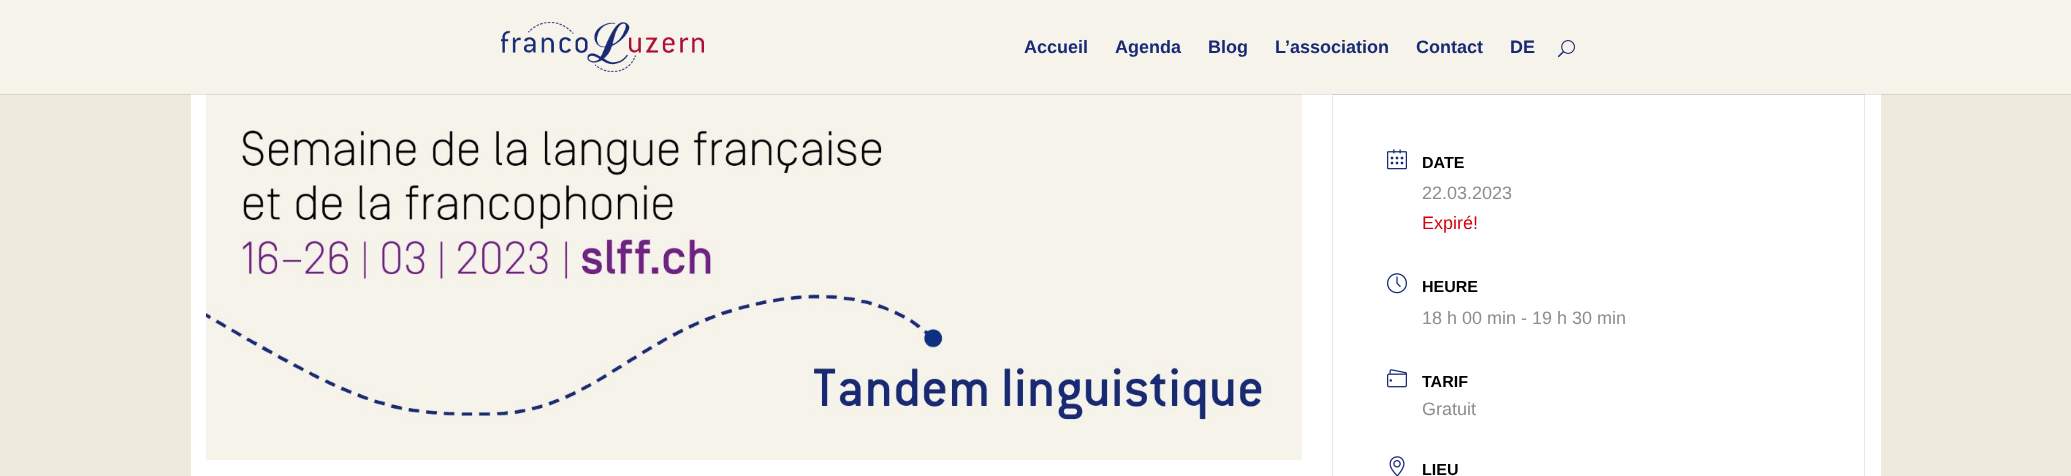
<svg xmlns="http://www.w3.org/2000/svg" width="2071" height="476">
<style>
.a{font:bold 18px Liberation Sans;fill:#182a76}
.b{font:bold 16px Liberation Sans;fill:#000}
.c{font:18px Liberation Sans;fill:#8d8d8d}
.d{font:18px Liberation Sans;fill:#d8000c}
</style>
<rect width="100%" height="100%" fill="#efebdc"/>
<path fill="#fff" d="M191 94h1690v382H191z"/>
<image href="3.png" x="206" y="94" width="1096" height="366"/>
<path fill="none" stroke="#e6e7e8" d="M1332.5 94.5h532v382H1332.5z"/>
<path fill="#0000001a" d="M0 94h2071v1H0z"/>
<path fill="#f6f3ea" d="M0 0h2071v94H0z"/>
<image href="1.png" x="501" y="22" width="203" height="50"/>
<image href="2.png" x="1558" y="40" width="17" height="18"/>
<image href="4.png" x="1387" y="149" width="20" height="21"/>
<image href="5.png" x="1387" y="273" width="20" height="21"/>
<image href="6.png" x="1387" y="369" width="20" height="19"/>
<image href="7.png" x="1389" y="456" width="16" height="20"/>
<text class="a" x="1024" y="53">Accueil</text>
<text class="a" x="1115" y="53">Agenda</text>
<text class="a" x="1208" y="53">Blog</text>
<text class="a" x="1275" y="53">L’association</text>
<text class="a" x="1416" y="53">Contact</text>
<text class="a" x="1510" y="53">DE</text>
<text class="b" x="1422" y="168">DATE</text>
<text class="c" x="1422" y="199">22.03.2023</text>
<text class="d" x="1422" y="229">Expiré!</text>
<text class="b" x="1422" y="292">HEURE</text>
<text class="c" x="1422" y="324">18 h 00 min - 19 h 30 min</text>
<text class="b" x="1422" y="387">TARIF</text>
<text class="c" x="1422" y="415">Gratuit</text>
<text class="b" x="1422" y="475">LIEU</text>
</svg>
